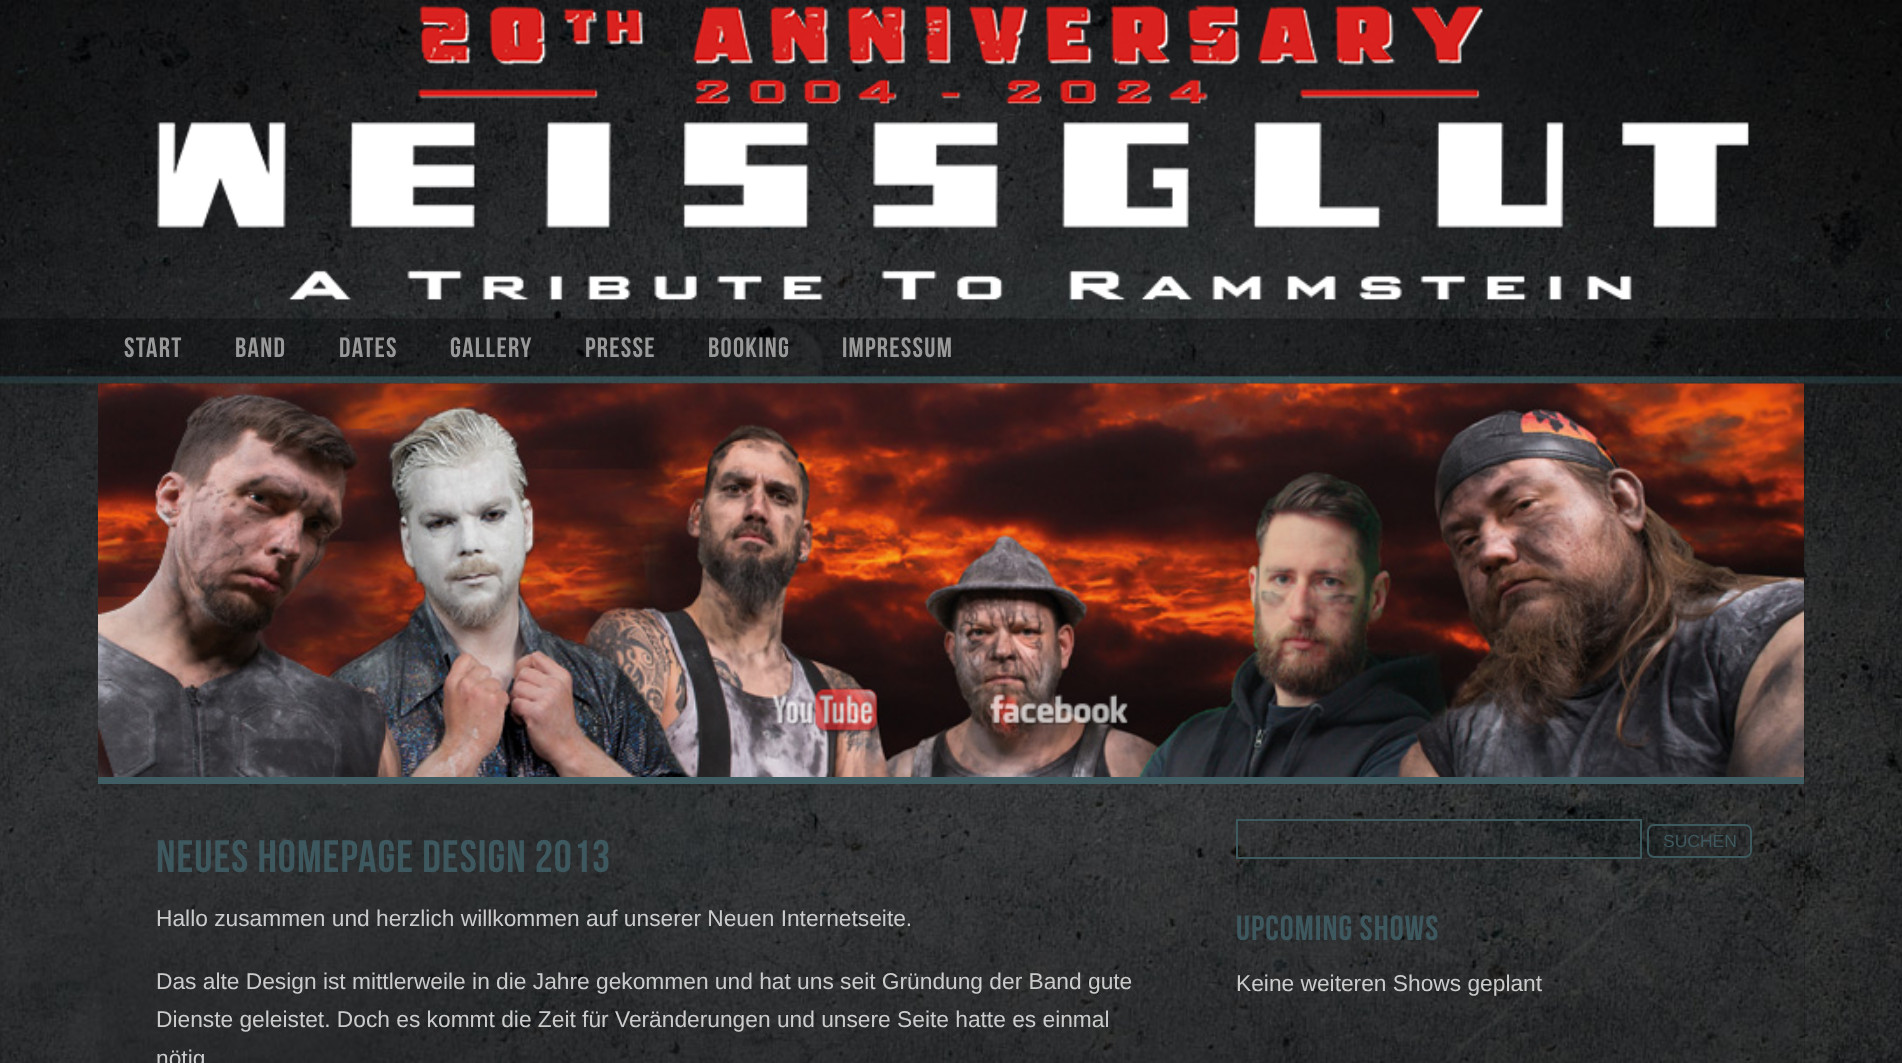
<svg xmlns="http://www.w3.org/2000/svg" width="1902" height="1063">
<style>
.a{font:28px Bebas;letter-spacing:1.25px;fill:#999}
.b{font:45.5px Bebas;letter-spacing:1.05px;fill:#3d595f}
.c{font:22.75px Liberation Sans;fill:#cbcbcb}
.d{font:17.5px Liberation Sans;fill:#3d595f}
.e{font:35px Bebas;letter-spacing:1.05px;fill:#3d595f}
</style>
<rect width="100%" height="100%" fill="#fff"/>
<image href="1.png" x="0" y="0" width="1902" height="1063"/>
<image href="2.png" x="1804" y="376" width="1" height="687"/>
<image href="3.png" x="157" y="5" width="1592" height="295"/>
<path fill="#3f5d63" d="M98 777h1706v7H98z"/>
<image href="4.png" x="98" y="383" width="1706" height="394"/>
<image href="5.png" x="772" y="687" width="107" height="47"/>
<image href="6.png" x="990" y="694" width="138" height="31"/>
<path fill="none" stroke="#3d5a5f" stroke-width="2" d="M1237 820h404v38H1237z"/>
<rect fill="none" stroke="#3d5a5f" stroke-width="2" x="1648" y="825" width="103" height="32" rx="6"/>
<text class="a" x="124" y="357">Start</text>
<text class="a" x="235" y="357">Band</text>
<text class="a" x="339" y="357">Dates</text>
<text class="a" x="450" y="357">Gallery</text>
<text class="a" x="585" y="357">Presse</text>
<text class="a" x="708" y="357">Booking</text>
<text class="a" x="842" y="357">Impressum</text>
<text class="b" x="156" y="872">Neues Homepage Design 2013</text>
<text class="c" x="156" y="926">Hallo zusammen und herzlich willkommen auf unserer Neuen Internetseite.</text>
<text class="c" x="156" y="989">Das alte Design ist mittlerweile in die Jahre gekommen und hat uns seit Gründung der Band gute</text>
<text class="c" x="156" y="1027">Dienste geleistet. Doch es kommt die Zeit für Veränderungen und unsere Seite hatte es einmal</text>
<text class="c" x="156" y="1066">nötig</text>
<text class="d" x="1663" y="847">SUCHEN</text>
<text class="e" x="1236" y="940">Upcoming shows</text>
<text class="c" x="1236" y="991">Keine weiteren Shows geplant</text>
</svg>
